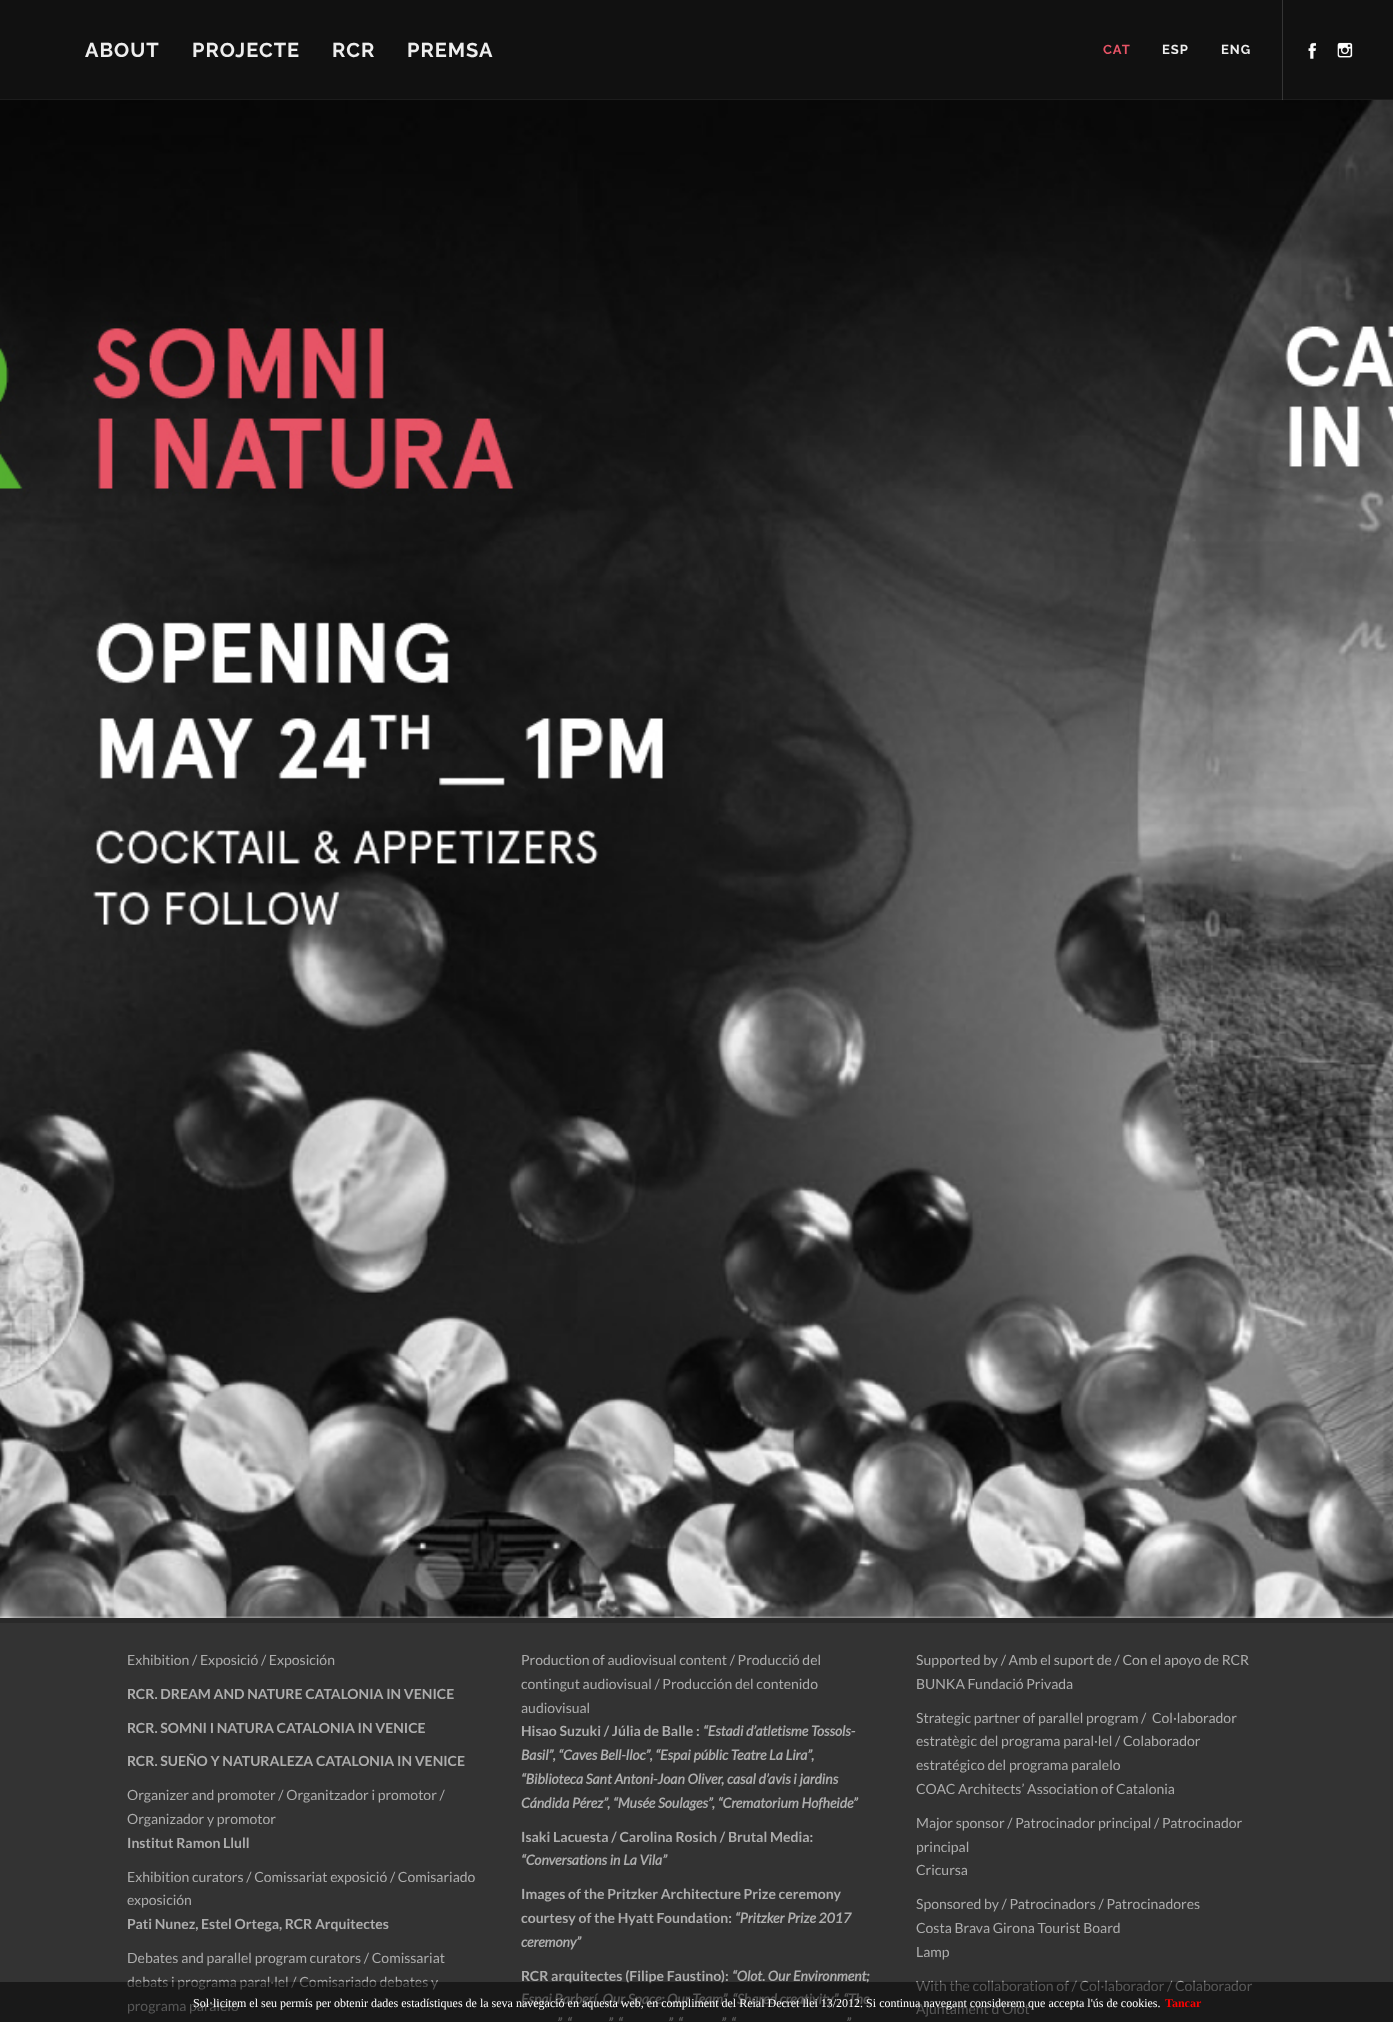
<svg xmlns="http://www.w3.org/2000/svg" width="1393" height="2022">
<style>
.a{font:bold 20px Raleway;letter-spacing:1px;fill:#eee}
.b{font:bold 13px Raleway;letter-spacing:1px;fill:#e75466}
.c{font:bold 13px Raleway;letter-spacing:1px;fill:#eee}
.d{font:14px Lato;fill:#adadad}
.e{font:bold 14px Lato;fill:#adadad}
.f{font:italic bold 14px Lato;fill:#adadad}
.g{font:12px Liberation Serif;fill:#fff}
.h{font:bold 12px Liberation Serif;fill:#f00}
</style>
<rect width="100%" height="100%" fill="#111"/>
<path fill="#353535" d="M1282 0h1v100H1282z"/>
<path fill="#1d1d1d" d="M0 99h1393v1H0z"/>
<path fill="#3f3f3f" d="M1282 99h1v1H1282z"/>
<image href="1.png" x="1308" y="42" width="8" height="17"/>
<image href="2.png" x="1337" y="42" width="16" height="16"/>
<image href="3.png" x="0" y="100" width="1393" height="1518"/>
<path fill="#333" d="M0 1623h1393v399H0z"/>
<path fill="#292929" d="M0 1618h1393v5H0z"/>
<text class="a" x="85" y="57">ABOUT</text>
<text class="a" x="192" y="57">PROJECTE</text>
<text class="a" x="332" y="57">RCR</text>
<text class="a" x="407" y="57">PREMSA</text>
<text class="b" x="1103" y="54">CAT</text>
<text class="c" x="1162" y="54">ESP</text>
<text class="c" x="1221" y="54">ENG</text>
<text class="d" x="127" y="1665">Exhibition / Exposició / Exposición</text>
<text class="e" x="127" y="1699">RCR. DREAM AND NATURE CATALONIA IN VENICE</text>
<text class="e" x="127" y="1733">RCR. SOMNI I NATURA CATALONIA IN VENICE</text>
<text class="e" x="127" y="1766">RCR. SUEÑO Y NATURALEZA CATALONIA IN VENICE</text>
<text class="d" x="127" y="1800">Organizer and promoter / Organitzador i promotor /</text>
<text class="d" x="127" y="1824">Organizador y promotor</text>
<text class="e" x="127" y="1848">Institut Ramon Llull</text>
<text class="d" x="127" y="1882">Exhibition curators / Comissariat exposició / Comisariado</text>
<text class="d" x="127" y="1905">exposición</text>
<text class="e" x="127" y="1929">Pati Nunez, Estel Ortega, RCR Arquitectes</text>
<text class="d" x="127" y="1963">Debates and parallel program curators / Comissariat</text>
<text class="d" x="127" y="1987">debats i programa paral·lel / Comisariado debates y</text>
<text class="d" x="127" y="2011">programa paralelo</text>
<text class="d" x="521" y="1665">Production of audiovisual content / Producció del</text>
<text class="d" x="521" y="1689">contingut audiovisual / Producción del contenido</text>
<text class="d" x="521" y="1713">audiovisual</text>
<text class="e" x="521" y="1736">Hisao Suzuki / Júlia de Balle :</text>
<text class="f" x="703" y="1736">“Estadi d’atletisme Tossols-</text>
<text class="f" x="521" y="1760">Basil”, “Caves Bell-lloc”, “Espai públic Teatre La Lira”,</text>
<text class="f" x="521" y="1784">“Biblioteca Sant Antoni-Joan Oliver, casal d’avis i jardins</text>
<text class="f" x="521" y="1808">Cándida Pérez”, “Musée Soulages”, “Crematorium Hofheide”</text>
<text class="e" x="521" y="1842">Isaki Lacuesta / Carolina Rosich / Brutal Media:</text>
<text class="f" x="521" y="1865">“Conversations in La Vila”</text>
<text class="e" x="521" y="1899">Images of the Pritzker Architecture Prize ceremony</text>
<text class="e" x="521" y="1923">courtesy of the Hyatt Foundation:</text>
<text class="f" x="735" y="1923">“Pritzker Prize 2017</text>
<text class="f" x="521" y="1947">ceremony”</text>
<text class="e" x="521" y="1981">RCR arquitectes (Filipe Faustino):</text>
<text class="f" x="732" y="1981">“Olot. Our Environment;</text>
<text class="f" x="521" y="2004">Espai Barberí. Our Space; Our Team”, “Shared creativity”, “The</text>
<text class="f" x="557" y="2028">”, “</text>
<text class="f" x="608" y="2028">”, “</text>
<text class="f" x="668" y="2028">”, “</text>
<text class="f" x="721" y="2028">”, “</text>
<text class="f" x="846" y="2028">”</text>
<text class="d" x="916" y="1665">Supported by / Amb el suport de / Con el apoyo de RCR</text>
<text class="d" x="916" y="1689">BUNKA Fundació Privada</text>
<text class="d" x="916" y="1723">Strategic partner of parallel program /</text>
<text class="d" x="1152" y="1723">Col·laborador</text>
<text class="d" x="916" y="1746">estratègic del programa paral·lel / Colaborador</text>
<text class="d" x="916" y="1770">estratégico del programa paralelo</text>
<text class="d" x="916" y="1794">COAC Architects’ Association of Catalonia</text>
<text class="d" x="916" y="1828">Major sponsor / Patrocinador principal / Patrocinador</text>
<text class="d" x="916" y="1852">principal</text>
<text class="d" x="916" y="1875">Cricursa</text>
<text class="d" x="916" y="1909">Sponsored by / Patrocinadors / Patrocinadores</text>
<text class="d" x="916" y="1933">Costa Brava Girona Tourist Board</text>
<text class="d" x="916" y="1957">Lamp</text>
<text class="d" x="916" y="1991">With the collaboration of / Col·laborador / Colaborador</text>
<text class="d" x="916" y="2014">Ajuntament d’Olot</text>
<path fill="#00000080" d="M0 1982h1393v40H0z"/>
<text class="g" x="193" y="2007">Sol·licitem el seu permís per obtenir dades estadístiques de la seva navegació en aquesta web, en compliment del Reial Decret llei 13/2012. Si continua navegant considerem que accepta l'ús de cookies.</text>
<text class="h" x="1165" y="2007">Tancar</text>
</svg>
